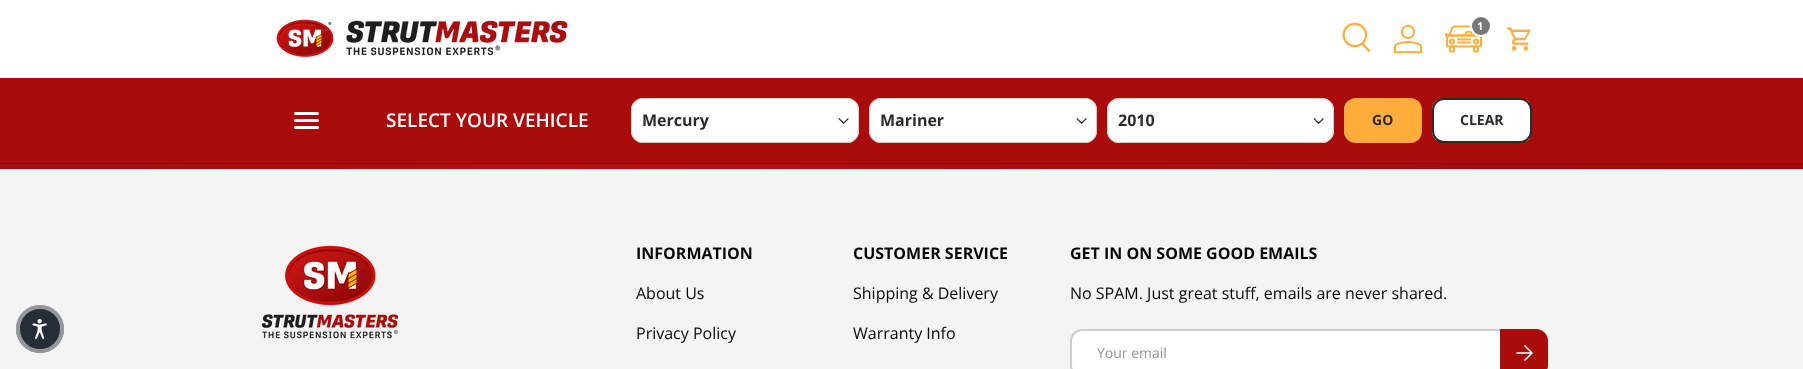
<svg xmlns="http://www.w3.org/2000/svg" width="1803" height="369">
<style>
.a{font:bold 11px Open Sans;fill:#fff}
.b{font:600 19px Open Sans;fill:#fff}
.c{font:bold 16px Open Sans;fill:#2a2b2a}
.d{font:bold 14px Open Sans;fill:#2a2b2a}
.e{font:bold 16px Open Sans;fill:#070707}
.f{font:16px Open Sans;fill:#070707}
.g{font:14px Open Sans;fill:#959595}
</style>
<defs>
<clipPath id="clip1"><rect x="1344" y="98" width="78" height="45" rx="12"/></clipPath>
<linearGradient id="g1" gradientUnits="userSpaceOnUse" x1="1200" y1="93" x2="1418" y2="148"><stop offset="0.6" stop-color="#e1a145"/><stop offset="0.6" stop-color="#ffae3b"/><stop offset="1" stop-color="#ffae3b"/></linearGradient>
<clipPath id="clip2"><rect x="1432" y="98" width="100" height="45" rx="12"/></clipPath>
<linearGradient id="g2" gradientUnits="userSpaceOnUse" x1="1246" y1="85" x2="1526" y2="156"><stop offset="0.6" stop-color="#2a2b2a" stop-opacity="0.07"/><stop offset="0.6" stop-color="#fff"/><stop offset="1" stop-color="#fff"/></linearGradient>
<linearGradient id="g3" gradientUnits="userSpaceOnUse" x1="411" y1="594" x2="1392" y2="-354"><stop offset="0.08" stop-color="#aa0c0c"/><stop offset="0.32" stop-color="#b80f0f"/><stop offset="0.92" stop-color="#a00909"/></linearGradient>
</defs>
<rect width="100%" height="100%" fill="#fff"/>
<image href="1.png" x="276" y="19" width="292" height="38"/>
<image href="2.png" x="1342" y="22" width="29" height="31"/>
<image href="3.png" x="1393" y="24" width="30" height="30"/>
<image href="4.png" x="1445" y="25" width="38" height="28"/>
<circle fill="none" stroke="#fff" stroke-width="2" cx="1481" cy="26" r="10"/>
<circle fill="#777" cx="1481" cy="26" r="9"/>
<image href="5.png" x="1507" y="27" width="24" height="24"/>
<path fill="#aa0c0c" d="M0 78h1803v85H0z"/>
<path fill="#920b0b" d="M0 163h1803v1H0z"/>
<rect fill="#fff" x="294" y="112" width="25" height="3" rx="1.5"/>
<rect fill="#fff" x="294" y="126" width="25" height="3" rx="1.5"/>
<rect fill="#fff" x="294" y="119" width="25" height="3" rx="1.5"/>
<rect fill="#fff" x="631" y="98" width="228" height="45" rx="12"/>
<image href="6.png" x="838" y="118" width="11" height="6"/>
<rect fill="none" stroke="#ccc" x="631.5" y="98.5" width="227" height="44" rx="11.5"/>
<rect fill="#fff" x="869" y="98" width="228" height="45" rx="12"/>
<image href="6.png" x="1076" y="118" width="11" height="6"/>
<rect fill="none" stroke="#ccc" x="869.5" y="98.5" width="227" height="44" rx="11.5"/>
<rect fill="#fff" x="1107" y="98" width="227" height="45" rx="12"/>
<image href="6.png" x="1313" y="118" width="11" height="6"/>
<rect fill="none" stroke="#ccc" x="1107.5" y="98.5" width="226" height="44" rx="11.5"/>
<g clip-path="url(#clip1)">
<path fill="url(#g1)" d="M1344 100h76v41H1344z"/>
</g>
<rect fill="none" stroke="#ffae3b" stroke-width="2" x="1345" y="99" width="76" height="43" rx="11"/>
<g clip-path="url(#clip2)">
<path fill="url(#g2)" d="M1432 100h98v41H1432z"/>
</g>
<rect fill="none" stroke="#2a2b2a" stroke-width="2" x="1433" y="99" width="98" height="43" rx="11"/>
<path fill="url(#g3)" d="M0 164h1803v5H0z"/>
<path fill="#f4f4f4" d="M0 169h1803v200H0z"/>
<circle fill="#272d36" cx="40" cy="329" r="24"/>
<circle fill="none" stroke="#ffffff80" stroke-width="4" cx="40" cy="329" r="22"/>
<image href="7.png" x="32" y="319" width="15" height="20"/>
<image href="8.png" x="261" y="245" width="138" height="94"/>
<rect fill="#fff" x="1070" y="329" width="478" height="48" rx="12"/>
<rect fill="none" stroke="#07070733" stroke-width="2" x="1071" y="330" width="476" height="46" rx="11"/>
<path fill="#aa0c0c" d="M1500 329h36c6.5 0 12 5.5 12 12v24c0 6.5-5.5 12-12 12h-36z"/>
<path fill="none" stroke="#fff" stroke-width="1.5" d="M1516.5 353h15m-7-7.5l7.5 7.5l-7.5 7.5"/>
<text class="a" x="1477" y="30">1</text>
<text class="b" x="386" y="127">SELECT YOUR VEHICLE</text>
<text class="c" x="642" y="126">Mercury</text>
<text class="c" x="880" y="126">Mariner</text>
<text class="c" x="1118" y="126">2010</text>
<text class="d" x="1372" y="125">GO</text>
<text class="d" x="1460" y="125">CLEAR</text>
<text class="e" x="636" y="259">INFORMATION</text>
<text class="f" x="636" y="299">About Us</text>
<text class="f" x="636" y="339">Privacy Policy</text>
<text class="e" x="853" y="259">CUSTOMER SERVICE</text>
<text class="f" x="853" y="299">Shipping &amp; Delivery</text>
<text class="f" x="853" y="339">Warranty Info</text>
<text class="e" x="1070" y="259">GET IN ON SOME GOOD EMAILS</text>
<text class="f" x="1070" y="299">No SPAM. Just great stuff, emails are never shared.</text>
<text class="g" x="1097" y="358">Your email</text>
</svg>
